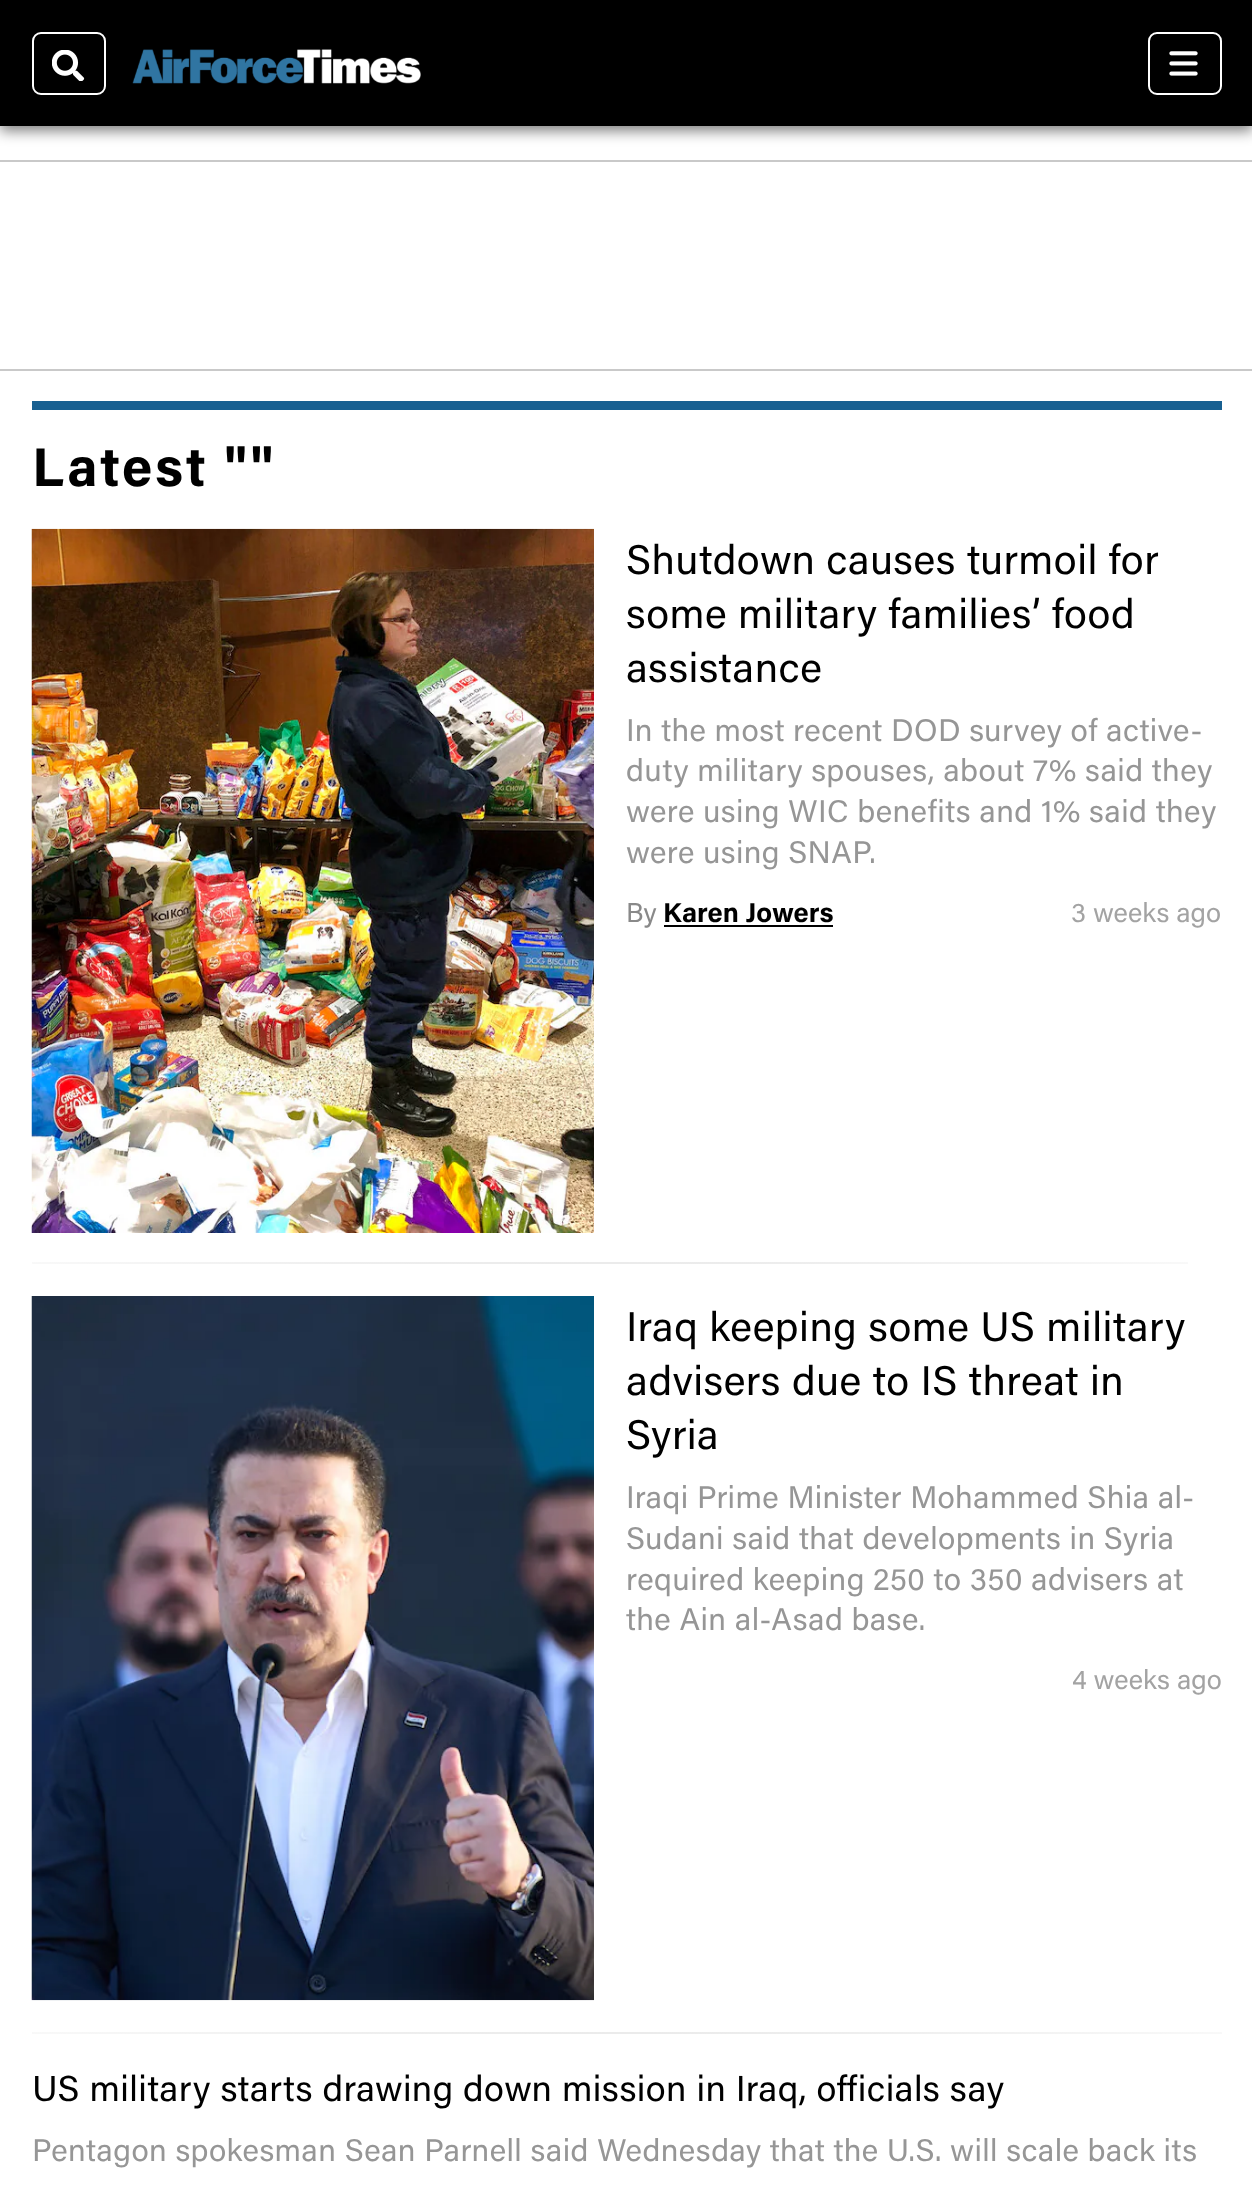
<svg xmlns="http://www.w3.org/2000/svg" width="1252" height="2185">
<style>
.a{font:bold 54.5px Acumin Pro;letter-spacing:2.75px;fill:#000}
.b{font:41.4px Acumin Pro;letter-spacing:0.5px;fill:#000}
.c{font:31.3px Acumin Pro;letter-spacing:0.4px;fill:#969696}
.d{font:27.25px Acumin Pro;fill:#898989}
.e{font:bold 27.25px Acumin Pro;fill:#000}
.f{font:27.25px Acumin Pro;fill:#a3a3a3}
.g{font:36px Acumin Pro;letter-spacing:0.45px;fill:#000}
</style>
<defs>
<radialGradient id="g1" gradientUnits="userSpaceOnUse" cx="0" cy="0" r="1" gradientTransform="matrix(818 0 0 1.6 610 1263)"><stop offset="0" stop-color="#e2e2e2"/><stop offset="1" stop-color="#fff"/></radialGradient>
<radialGradient id="g2" gradientUnits="userSpaceOnUse" cx="0" cy="0" r="1" gradientTransform="matrix(842 0 0 1.6 627 2033)"><stop offset="0" stop-color="#e2e2e2"/><stop offset="1" stop-color="#fff"/></radialGradient>
</defs>
<rect width="100%" height="100%" fill="#fff"/>
<path fill="#00000080" filter="blur(7px)" d="M0 5h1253v126H0z"/>
<path fill="#000" d="M0 0h1252v126H0z"/>
<rect fill="none" stroke="#fff" stroke-width="2" x="33" y="33" width="72" height="61" rx="8"/>
<image href="1.png" x="52" y="50" width="33" height="31"/>
<image href="2.png" x="132" y="49" width="289" height="35"/>
<rect fill="none" stroke="#fff" stroke-width="2" x="1149" y="33" width="72" height="61" rx="8"/>
<image href="3.png" x="1169" y="51" width="29" height="25"/>
<path fill="#c9c9c9" d="M0 160h1252v2H0z"/>
<path fill="#c9c9c9" d="M0 369h1252v2H0z"/>
<path fill="#186091" d="M32 401h1190v9H32z"/>
<image href="4.png" x="31" y="528" width="563" height="705"/>
<path fill="#000" d="M664 925h169v2H664z"/>
<path fill="url(#g1)" d="M32 1262h1156v2H32z"/>
<image href="5.png" x="31" y="1296" width="563" height="705"/>
<path fill="url(#g2)" d="M32 2032h1190v2H32z"/>
<text class="a" x="32" y="486">Latest ""</text>
<text class="b" x="626" y="574">Shutdown causes turmoil for</text>
<text class="b" x="626" y="628">some military families’ food</text>
<text class="b" x="626" y="682">assistance</text>
<text class="c" x="626" y="741">In the most recent DOD survey of active-</text>
<text class="c" x="626" y="781">duty military spouses, about 7% said they</text>
<text class="c" x="626" y="822">were using WIC benefits and 1% said they</text>
<text class="c" x="626" y="863">were using SNAP.</text>
<text class="d" x="626" y="922">By</text>
<text class="e" x="663" y="922">Karen Jowers</text>
<text class="f" x="1071" y="922">3 weeks ago</text>
<text class="b" x="626" y="1341">Iraq keeping some US military</text>
<text class="b" x="626" y="1395">advisers due to IS threat in</text>
<text class="b" x="626" y="1449">Syria</text>
<text class="c" x="626" y="1508">Iraqi Prime Minister Mohammed Shia al-</text>
<text class="c" x="626" y="1549">Sudani said that developments in Syria</text>
<text class="c" x="626" y="1590">required keeping 250 to 350 advisers at</text>
<text class="c" x="626" y="1630">the Ain al-Asad base.</text>
<text class="f" x="1072" y="1689">4 weeks ago</text>
<text class="g" x="32" y="2101">US military starts drawing down mission in Iraq, officials say</text>
<text class="c" x="32" y="2161">Pentagon spokesman Sean Parnell said Wednesday that the U.S. will scale back its</text>
</svg>
